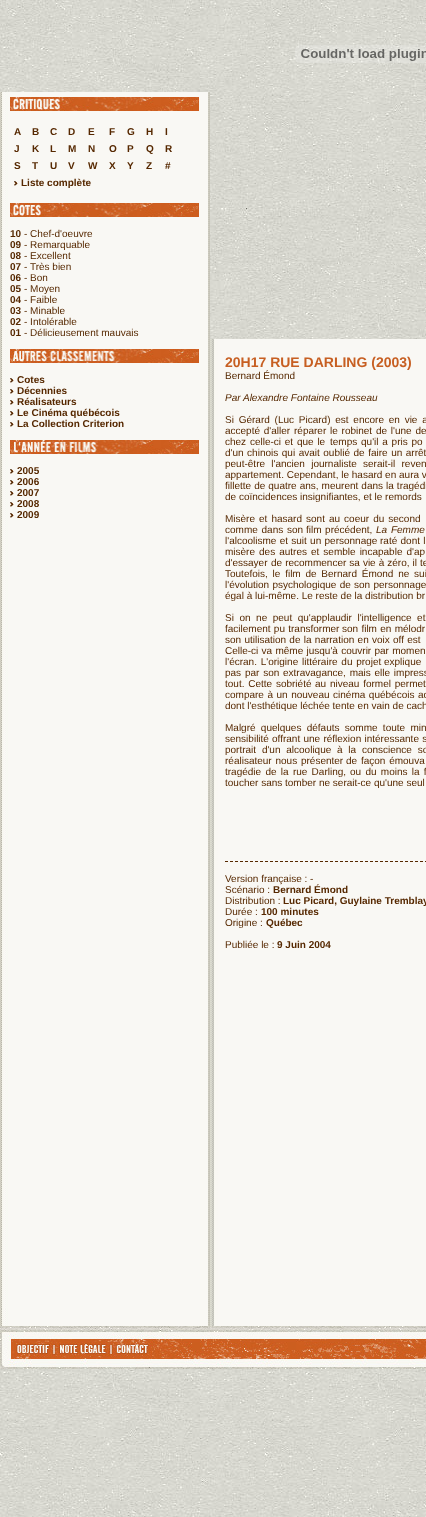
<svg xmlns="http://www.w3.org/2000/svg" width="426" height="1517">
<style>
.a{font:bold 10px Liberation Sans;fill:#562800}
.b{font:10px Liberation Sans;fill:#562800}
.c{font:bold 14px Liberation Sans;fill:#c75f22}
.d{font:italic 10px Liberation Sans;fill:#562800}
</style>
<rect width="100%" height="100%" fill="#fff"/>
<image href="1.png" x="0" y="0" width="426" height="1517"/>
<image href="2.png" x="295" y="45" width="131" height="18"/>
<image href="3.png" x="0" y="92" width="210" height="1217"/>
<image href="4.png" x="10" y="97" width="189" height="14"/>
<image href="5.png" x="14" y="181" width="4" height="5"/>
<image href="6.png" x="10" y="203" width="189" height="14"/>
<image href="7.png" x="10" y="349" width="189" height="14"/>
<image href="5.png" x="10" y="378" width="4" height="5"/>
<image href="5.png" x="10" y="389" width="4" height="5"/>
<image href="5.png" x="10" y="400" width="4" height="5"/>
<image href="5.png" x="10" y="411" width="4" height="5"/>
<image href="5.png" x="10" y="422" width="4" height="5"/>
<image href="8.png" x="10" y="440" width="189" height="14"/>
<image href="5.png" x="10" y="469" width="4" height="5"/>
<image href="5.png" x="10" y="480" width="4" height="5"/>
<image href="5.png" x="10" y="491" width="4" height="5"/>
<image href="5.png" x="10" y="502" width="4" height="5"/>
<image href="5.png" x="10" y="513" width="4" height="5"/>
<image href="9.png" x="210" y="339" width="216" height="970"/>
<path fill="none" stroke="#562800" stroke-dasharray="3 2" d="M225 861.5h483"/>
<image href="10.png" x="0" y="1309" width="210" height="17"/>
<image href="11.png" x="210" y="1309" width="216" height="17"/>
<image href="12.png" x="0" y="1326" width="426" height="43"/>
<text class="a" x="14" y="135">A</text>
<text class="a" x="32" y="135">B</text>
<text class="a" x="50" y="135">C</text>
<text class="a" x="68" y="135">D</text>
<text class="a" x="88" y="135">E</text>
<text class="a" x="109" y="135">F</text>
<text class="a" x="127" y="135">G</text>
<text class="a" x="146" y="135">H</text>
<text class="a" x="165" y="135">I</text>
<text class="a" x="14" y="152">J</text>
<text class="a" x="32" y="152">K</text>
<text class="a" x="50" y="152">L</text>
<text class="a" x="68" y="152">M</text>
<text class="a" x="88" y="152">N</text>
<text class="a" x="109" y="152">O</text>
<text class="a" x="127" y="152">P</text>
<text class="a" x="146" y="152">Q</text>
<text class="a" x="165" y="152">R</text>
<text class="a" x="14" y="169">S</text>
<text class="a" x="32" y="169">T</text>
<text class="a" x="50" y="169">U</text>
<text class="a" x="68" y="169">V</text>
<text class="a" x="88" y="169">W</text>
<text class="a" x="109" y="169">X</text>
<text class="a" x="127" y="169">Y</text>
<text class="a" x="146" y="169">Z</text>
<text class="a" x="165" y="169">#</text>
<text class="a" x="21" y="186">Liste complète</text>
<text class="a" x="10" y="237">10</text>
<text class="b" x="24" y="237">- Chef-d'oeuvre</text>
<text class="a" x="10" y="248">09</text>
<text class="b" x="24" y="248">- Remarquable</text>
<text class="a" x="10" y="259">08</text>
<text class="b" x="24" y="259">- Excellent</text>
<text class="a" x="10" y="270">07</text>
<text class="b" x="24" y="270">- Très bien</text>
<text class="a" x="10" y="281">06</text>
<text class="b" x="24" y="281">- Bon</text>
<text class="a" x="10" y="292">05</text>
<text class="b" x="24" y="292">- Moyen</text>
<text class="a" x="10" y="303">04</text>
<text class="b" x="24" y="303">- Faible</text>
<text class="a" x="10" y="314">03</text>
<text class="b" x="24" y="314">- Minable</text>
<text class="a" x="10" y="325">02</text>
<text class="b" x="24" y="325">- Intolérable</text>
<text class="a" x="10" y="336">01</text>
<text class="b" x="24" y="336">- Délicieusement mauvais</text>
<text class="a" x="17" y="383">Cotes</text>
<text class="a" x="17" y="394">Décennies</text>
<text class="a" x="17" y="405">Réalisateurs</text>
<text class="a" x="17" y="416">Le Cinéma québécois</text>
<text class="a" x="17" y="427">La Collection Criterion</text>
<text class="a" x="17" y="474">2005</text>
<text class="a" x="17" y="485">2006</text>
<text class="a" x="17" y="496">2007</text>
<text class="a" x="17" y="507">2008</text>
<text class="a" x="17" y="518">2009</text>
<text class="c" x="225" y="367">20H17 RUE DARLING (2003)</text>
<text class="b" x="225" y="379">Bernard Émond</text>
<text class="d" x="225" y="401">Par Alexandre Fontaine Rousseau</text>
<text class="b" x="225" y="423" word-spacing="2">Si Gérard (Luc Picard) est encore en vie a</text>
<text class="b" x="225" y="434" word-spacing="1">accepté d'aller</text>
<text class="b" x="294" y="434" word-spacing="1">réparer le robinet de l'une de</text>
<text class="b" x="225" y="445" word-spacing="1">chez celle-ci et que le</text>
<text class="b" x="330" y="445" word-spacing="1">temps qu'il a pris po</text>
<text class="b" x="225" y="456" word-spacing="0.75">d'un chinois qui avait oublié de faire un arrêt</text>
<text class="b" x="225" y="467" word-spacing="3.5">peut-être l'ancien journaliste serait-il reven</text>
<text class="b" x="225" y="478">appartement. Cependant, le hasard en aura v</text>
<text class="b" x="225" y="489" word-spacing="0.25">fillette de quatre ans, meurent dans la tragédi</text>
<text class="b" x="225" y="500">de coïncidences insignifiantes, et le remords</text>
<text class="b" x="225" y="522" word-spacing="1.25">Misère et hasard sont au coeur du second</text>
<text class="b" x="225" y="533" word-spacing="1">comme dans son</text>
<text class="b" x="306" y="533" word-spacing="0.75">film précédent,</text>
<text class="d" x="376" y="533" word-spacing="1">La Femme</text>
<text class="b" x="225" y="544" word-spacing="0.5">l'alcoolisme et suit un personnage</text>
<text class="b" x="380" y="544" word-spacing="0.5">raté dont l</text>
<text class="b" x="225" y="555" word-spacing="1.25">misère des autres et semble incapable d'ap</text>
<text class="b" x="225" y="566">d'essayer</text>
<text class="b" x="271" y="566" word-spacing="0.25">de recommencer sa vie à zéro, il te</text>
<text class="b" x="225" y="577" word-spacing="2">Toutefois, le film de Bernard Émond ne sui</text>
<text class="b" x="225" y="588" word-spacing="0.5">l'évolution psychologique de son personnage</text>
<text class="b" x="225" y="599">égal à lui-même. Le reste de la distribution br</text>
<text class="b" x="225" y="621" word-spacing="2.75">Si on ne peut qu'applaudir l'intelligence et</text>
<text class="b" x="225" y="632" word-spacing="0.5">facilement pu transformer</text>
<text class="b" x="342" y="632" word-spacing="0.5">son film en mélodr</text>
<text class="b" x="225" y="643" word-spacing="0.5">son utilisation de la narration en voix</text>
<text class="b" x="393" y="643" word-spacing="0.5">off est</text>
<text class="b" x="225" y="654" word-spacing="0.5">Celle-ci va même jusqu'à couvrir par momen</text>
<text class="b" x="225" y="665" word-spacing="1">l'écran. L'origine littéraire du projet</text>
<text class="b" x="384" y="665" word-spacing="1">explique</text>
<text class="b" x="225" y="676" word-spacing="1">pas par son extravagance, mais elle impress</text>
<text class="b" x="225" y="687" word-spacing="1">tout. Cette sobriété</text>
<text class="b" x="315" y="687" word-spacing="1">au niveau formel permet</text>
<text class="b" x="225" y="698" word-spacing="0.75">compare à un nouveau cinéma québécois</text>
<text class="b" x="418" y="698" word-spacing="0.75">ac</text>
<text class="b" x="225" y="709">dont l'esthétique léchée tente en vain de cach</text>
<text class="b" x="225" y="731" word-spacing="2.5">Malgré quelques défauts somme toute min</text>
<text class="b" x="225" y="742">sensibilité</text>
<text class="b" x="272" y="742" word-spacing="0.5">offrant une réflexion intéressante s</text>
<text class="b" x="225" y="753" word-spacing="3">portrait d'un alcoolique</text>
<text class="b" x="337" y="753" word-spacing="3">à la conscience so</text>
<text class="b" x="225" y="764" word-spacing="1">réalisateur nous présenter</text>
<text class="b" x="346" y="764" word-spacing="1">de façon émouva</text>
<text class="b" x="225" y="775" word-spacing="1.5">tragédie de la rue Darling,</text>
<text class="b" x="350" y="775" word-spacing="1.5">ou du moins la f</text>
<text class="b" x="225" y="786">toucher sans tomber ne serait-ce qu'une seul</text>
<text class="b" x="225" y="882">Version française : -</text>
<text class="b" x="225" y="893">Scénario :</text>
<text class="a" x="273" y="893">Bernard Émond</text>
<text class="b" x="225" y="904">Distribution :</text>
<text class="a" x="283" y="904">Luc Picard, Guylaine Tremblay</text>
<text class="b" x="225" y="915">Durée :</text>
<text class="a" x="261" y="915">100 minutes</text>
<text class="b" x="225" y="926">Origine :</text>
<text class="a" x="266" y="926">Québec</text>
<text class="b" x="225" y="948">Publiée le :</text>
<text class="a" x="277" y="948">9 Juin 2004</text>
</svg>
